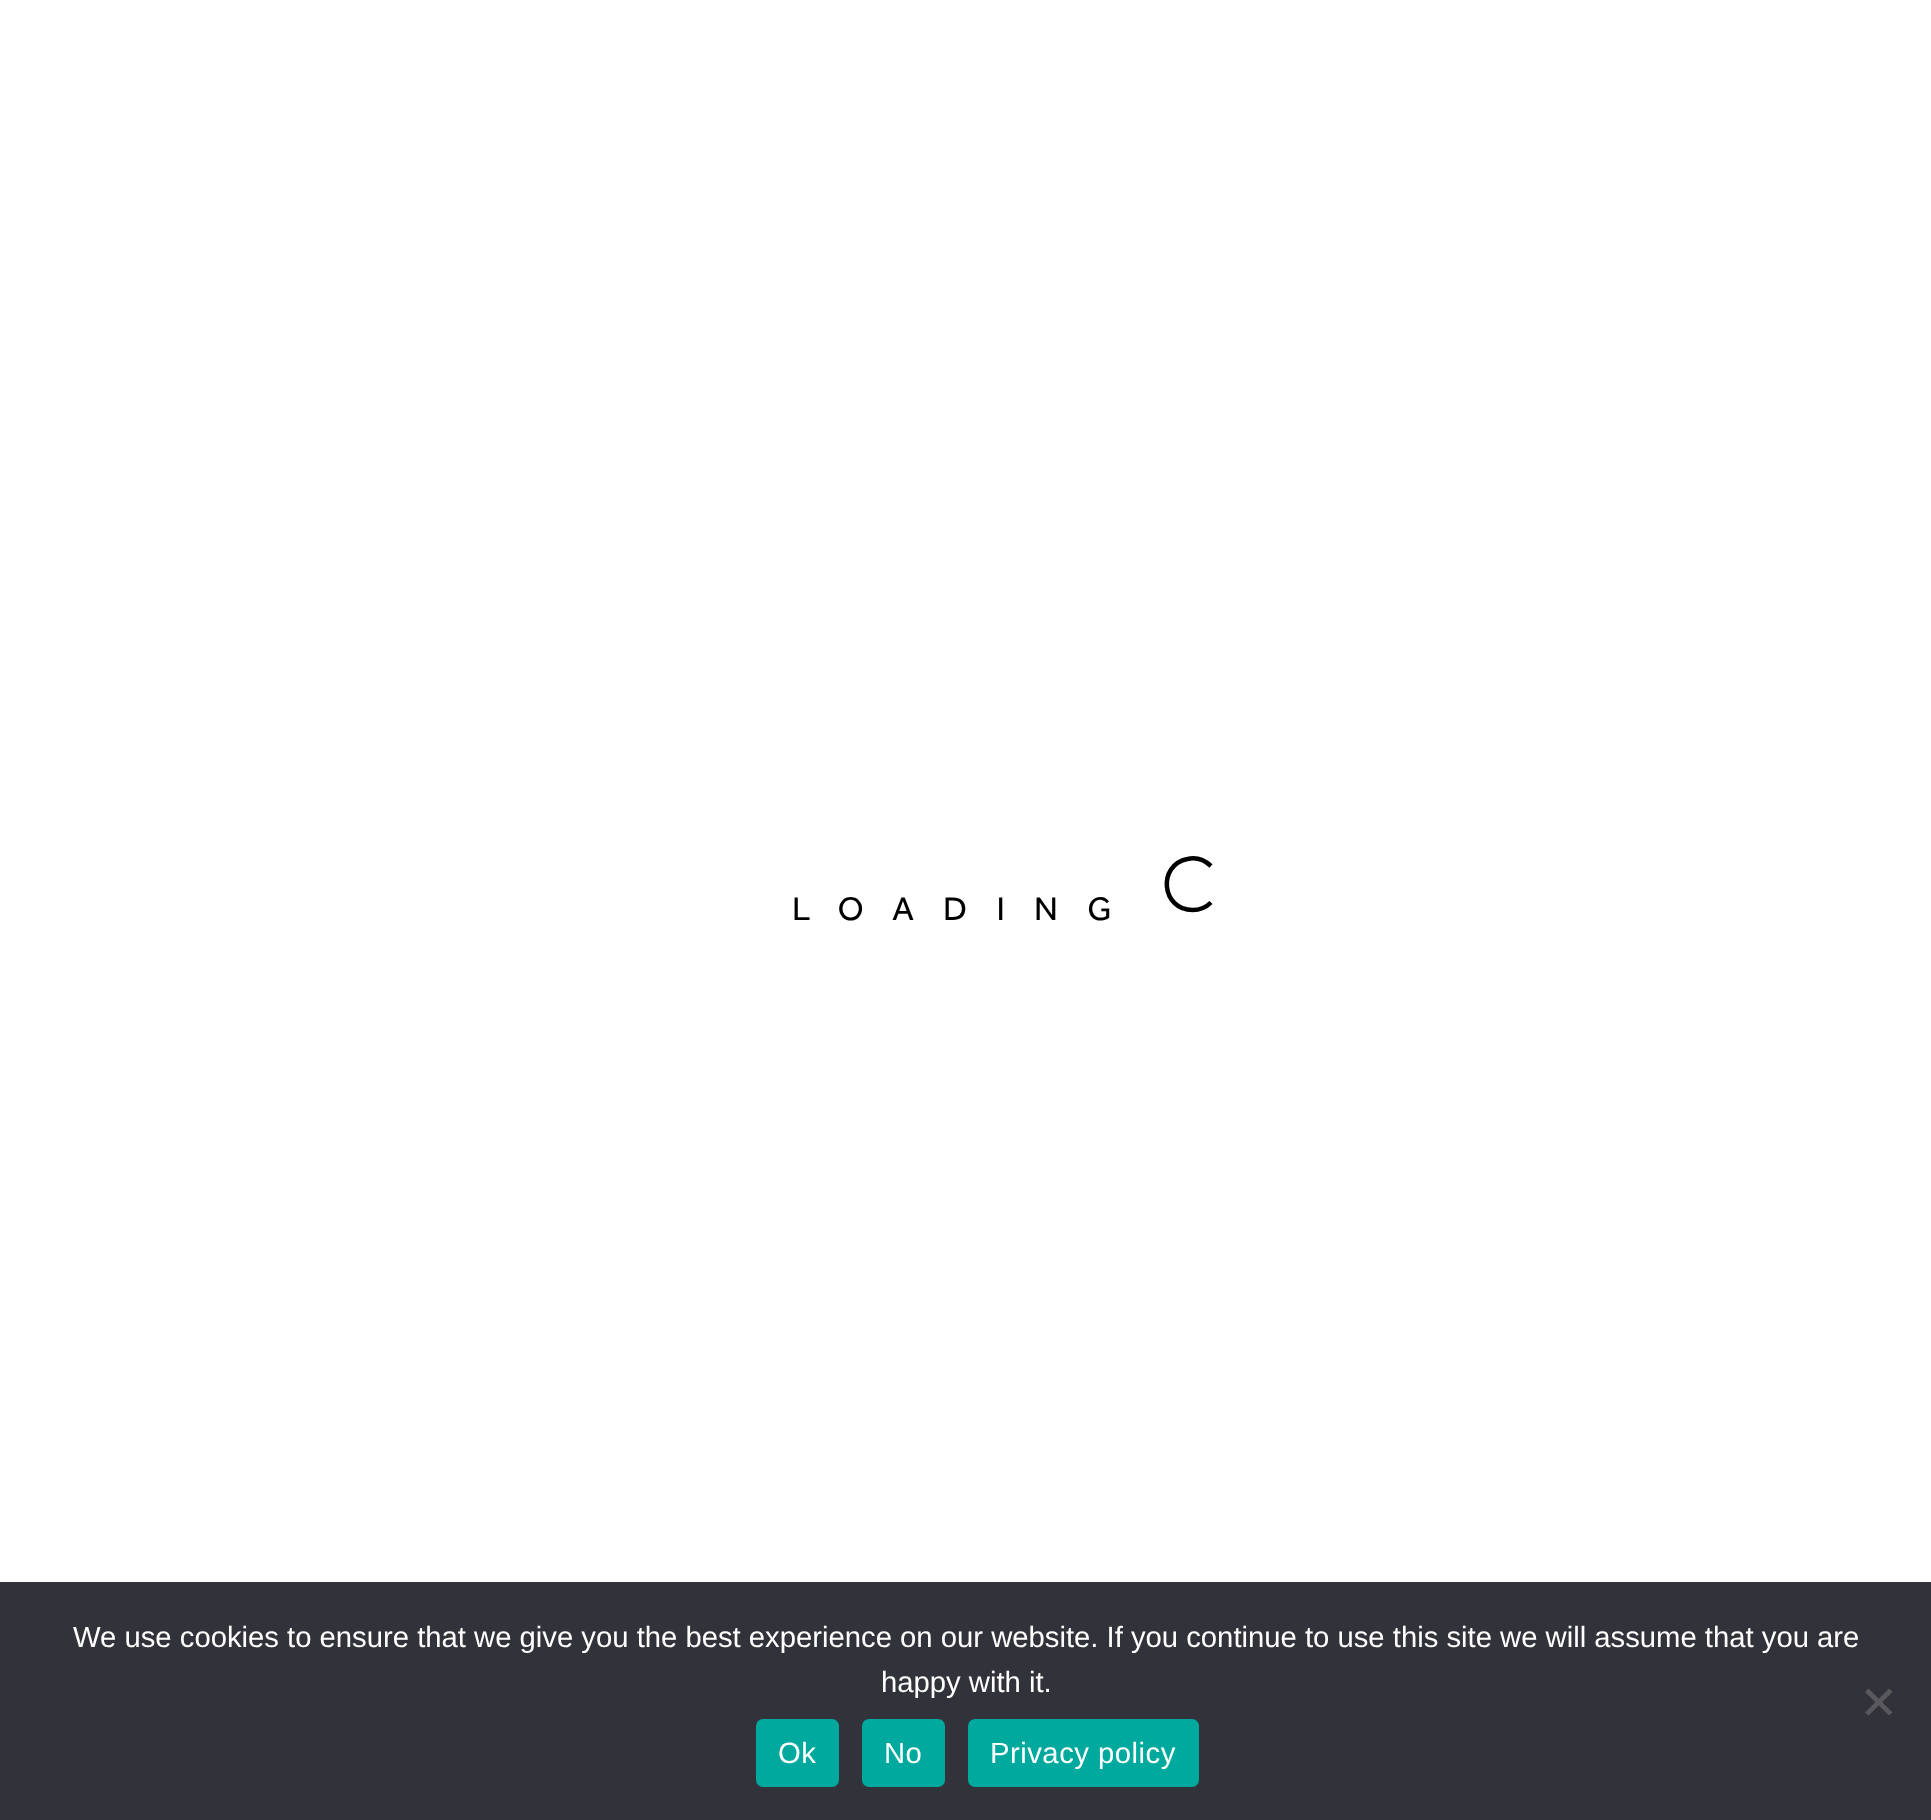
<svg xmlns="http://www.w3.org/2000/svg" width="1931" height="1820">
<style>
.a{font:33.75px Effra;letter-spacing:29.25px;fill:#000}
.b{font:29.25px Liberation Sans;fill:#fff}
.c{font:29.25px Liberation Sans;letter-spacing:0.5px;fill:#fff}
</style>
<rect width="100%" height="100%" fill="#fff"/>
<path fill="none" stroke="#000" stroke-width="4.5" d="M1211 902.5c-5 5-11.5 7.5-18.5 7.5c-31 0-35.5-45-5-51c8.5-2 17 1 23.5 7"/>
<path fill="#32323a" d="M0 1582h1931v238H0z"/>
<path fill="#59595d" d="M1889 1688.5l3.5 3.5l-24 23.5l-3.5-3z"/>
<path fill="#59595d" d="M1865 1692l3.5-3.5l24 24l-3.5 3z"/>
<rect fill="#00a99d" x="756" y="1719" width="83" height="68" rx="7"/>
<rect fill="#00a99d" x="862" y="1719" width="83" height="68" rx="7"/>
<rect fill="#00a99d" x="968" y="1719" width="231" height="68" rx="7"/>
<text class="a" x="792" y="920">LOADING</text>
<text class="b" x="73" y="1647">We use cookies to ensure that we give you the best experience on our website. If you continue to use this site we will assume that you are</text>
<text class="b" x="881" y="1692">happy with it.</text>
<text class="c" x="778" y="1763">Ok</text>
<text class="c" x="884" y="1763">No</text>
<text class="c" x="990" y="1763">Privacy policy</text>
</svg>
